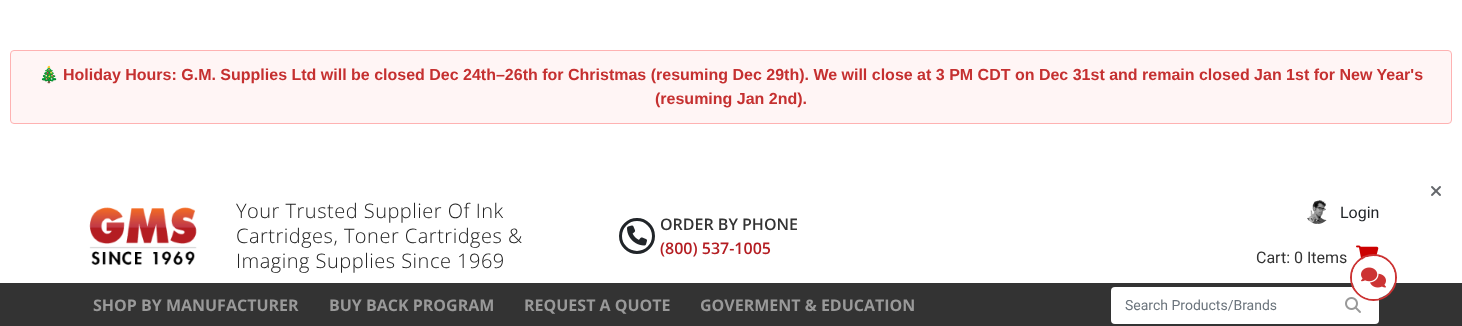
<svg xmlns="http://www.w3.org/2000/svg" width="1462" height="326">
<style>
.a{font:bold 16px Noto Color Emoji;fill:#c53030}
.b{font:bold 16px Liberation Sans;fill:#c53030}
.c{font:300 20px Open Sans;letter-spacing:0.5px;fill:#212121}
.d{font:600 16px Open Sans;fill:#333}
.e{font:600 16px Open Sans;fill:#b41d22}
.f{font:16px Roboto;fill:#212529}
.g{font:16px Roboto;fill:#333}
.h{font:bold 16px Open Sans;fill:#999}
.i{font:14px Roboto;fill:#6c757d}
</style>
<rect width="100%" height="100%" fill="#fff"/>
<rect fill="#fff5f5" stroke="#feb2b2" x="10.5" y="50.5" width="1441" height="73" rx="3.5"/>
<image href="1.png" x="1431" y="186" width="10" height="10"/>
<image href="2.png" x="89" y="207" width="108" height="58"/>
<circle fill="none" stroke="#212529" stroke-width="3" cx="637" cy="236" r="16.5"/>
<image href="3.png" x="627" y="225" width="20" height="21"/>
<image href="4.png" x="1307" y="200" width="20" height="24"/>
<image href="5.png" x="1356" y="245" width="23" height="15"/>
<path fill="#333" d="M0 283h1462v43H0z"/>
<rect fill="#fff" x="1111" y="287" width="268" height="37" rx="4"/>
<image href="6.png" x="1345" y="297" width="16" height="16"/>
<circle fill="none" stroke="#c33" stroke-width="2" cx="1373.5" cy="277.5" r="22.5"/>
<circle fill="#fff" cx="1373.5" cy="277.5" r="21.5"/>
<image href="7.png" x="1361" y="267" width="25" height="21"/>
<text class="a" x="39" y="80">🎄</text>
<text class="b" x="63" y="80">Holiday Hours: G.M. Supplies Ltd will be closed Dec 24th–26th for Christmas (resuming Dec 29th). We will close at 3 PM CDT on Dec 31st and remain closed Jan 1st for New Year's</text>
<text class="b" x="655" y="104">(resuming Jan 2nd).</text>
<text class="c" x="236" y="218">Your Trusted Supplier Of Ink</text>
<text class="c" x="236" y="243">Cartridges, Toner Cartridges &amp;</text>
<text class="c" x="236" y="268">Imaging Supplies Since 1969</text>
<text class="d" x="660" y="230">ORDER BY PHONE</text>
<text class="e" x="660" y="254">(800) 537-1005</text>
<text class="f" x="1340" y="218">Login</text>
<text class="g" x="1256" y="263">Cart: 0 Items</text>
<text class="h" x="93" y="311">SHOP BY MANUFACTURER</text>
<text class="h" x="329" y="311">BUY BACK PROGRAM</text>
<text class="h" x="524" y="311">REQUEST A QUOTE</text>
<text class="h" x="700" y="311">GOVERMENT &amp; EDUCATION</text>
<text class="i" x="1125" y="310">Search Products/Brands</text>
</svg>
